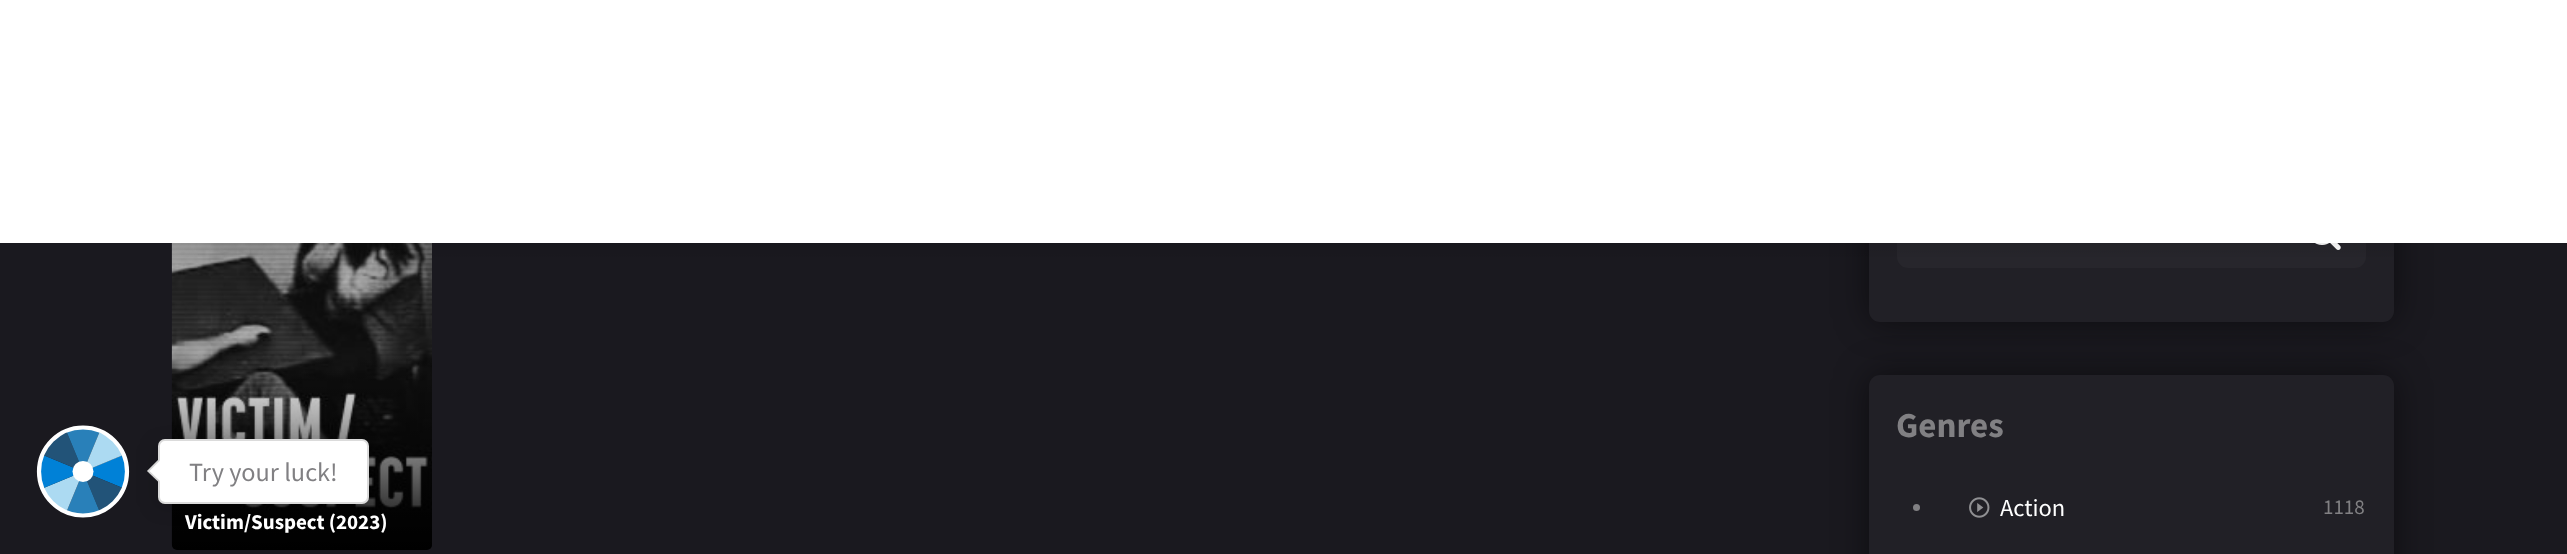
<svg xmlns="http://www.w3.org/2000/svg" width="2567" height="554">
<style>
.a{font:bold 35px Source Sans Pro;fill:#818083}
.b{font:24.5px Source Sans Pro;fill:#fff}
.c{font:21px Source Sans Pro;fill:#818083}
.d{font:bold 21px Source Sans Pro;fill:#fff}
.e{font:26.25px Source Sans Pro;fill:#818083}
</style>
<defs>
<linearGradient id="g1" gradientUnits="userSpaceOnUse" x1="302" y1="159" x2="302" y2="550"><stop offset="0.5" stop-color="#000" stop-opacity="0"/><stop offset="1" stop-color="#000"/></linearGradient>
<linearGradient id="g2" gradientUnits="userSpaceOnUse" x1="1284" y1="0" x2="1284" y2="263"><stop offset="0" stop-color="#000"/><stop offset="1" stop-color="#000" stop-opacity="0"/></linearGradient>
</defs>
<rect width="100%" height="100%" fill="#1a191f"/>
<rect fill="#00000080" filter="blur(17.5px)" x="1869" y="61" width="525" height="261" rx="11"/>
<rect fill="#212026" x="1869" y="61" width="525" height="261" rx="11"/>
<rect fill="#27262c" x="1897" y="198" width="469" height="70" rx="11"/>
<image href="3.png" x="171" y="243" width="261" height="306"/>
<rect fill="url(#g1)" x="172" y="159" width="260" height="391" rx="5"/>
<path fill="#fff" d="M0 0h2567v243H0z"/>
<image href="1.png" x="2315" y="243" width="26" height="7"/>
<path fill="url(#g2)" d="M171 243h2223v14H171z"/>
<rect fill="#00000080" filter="blur(17.5px)" x="1869" y="375" width="525" height="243" rx="11"/>
<rect fill="#212026" x="1869" y="375" width="525" height="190" rx="11"/>
<circle fill="#818083" cx="1916.5" cy="507.5" r="3.5"/>
<image href="2.png" x="1969" y="497" width="21" height="21"/>
<image href="4.png" x="41" y="429" width="84" height="85"/>
<circle fill="none" stroke="#fff" stroke-width="4.2" cx="83" cy="471.5" r="44"/>
<circle fill="#fff" cx="83" cy="471.5" r="10.5"/>
<rect fill="#00000021" filter="blur(9px)" x="154" y="443" width="212" height="65" rx="7"/>
<rect fill="#fff" x="158" y="439" width="211" height="65" rx="7"/>
<rect fill="none" stroke="#00000024" stroke-width="2" x="159" y="440" width="209" height="63" rx="6"/>
<path fill="#fff" d="M158.5 459.5l11 11.5l-11 11l-11.5-11z"/>
<path fill="#00000029" d="M158.5 482l-11.5-11h2.5l10 9.5zm-11.5-11l11.5-11.5l1 1.5l-10 10z"/>
<text class="a" x="1896" y="437">Genres</text>
<text class="b" x="2000" y="516">Action</text>
<text class="c" x="2323" y="514">1118</text>
<text class="d" x="185" y="529">Victim/Suspect (2023)</text>
<text class="e" x="189" y="481">Try your luck!</text>
</svg>
